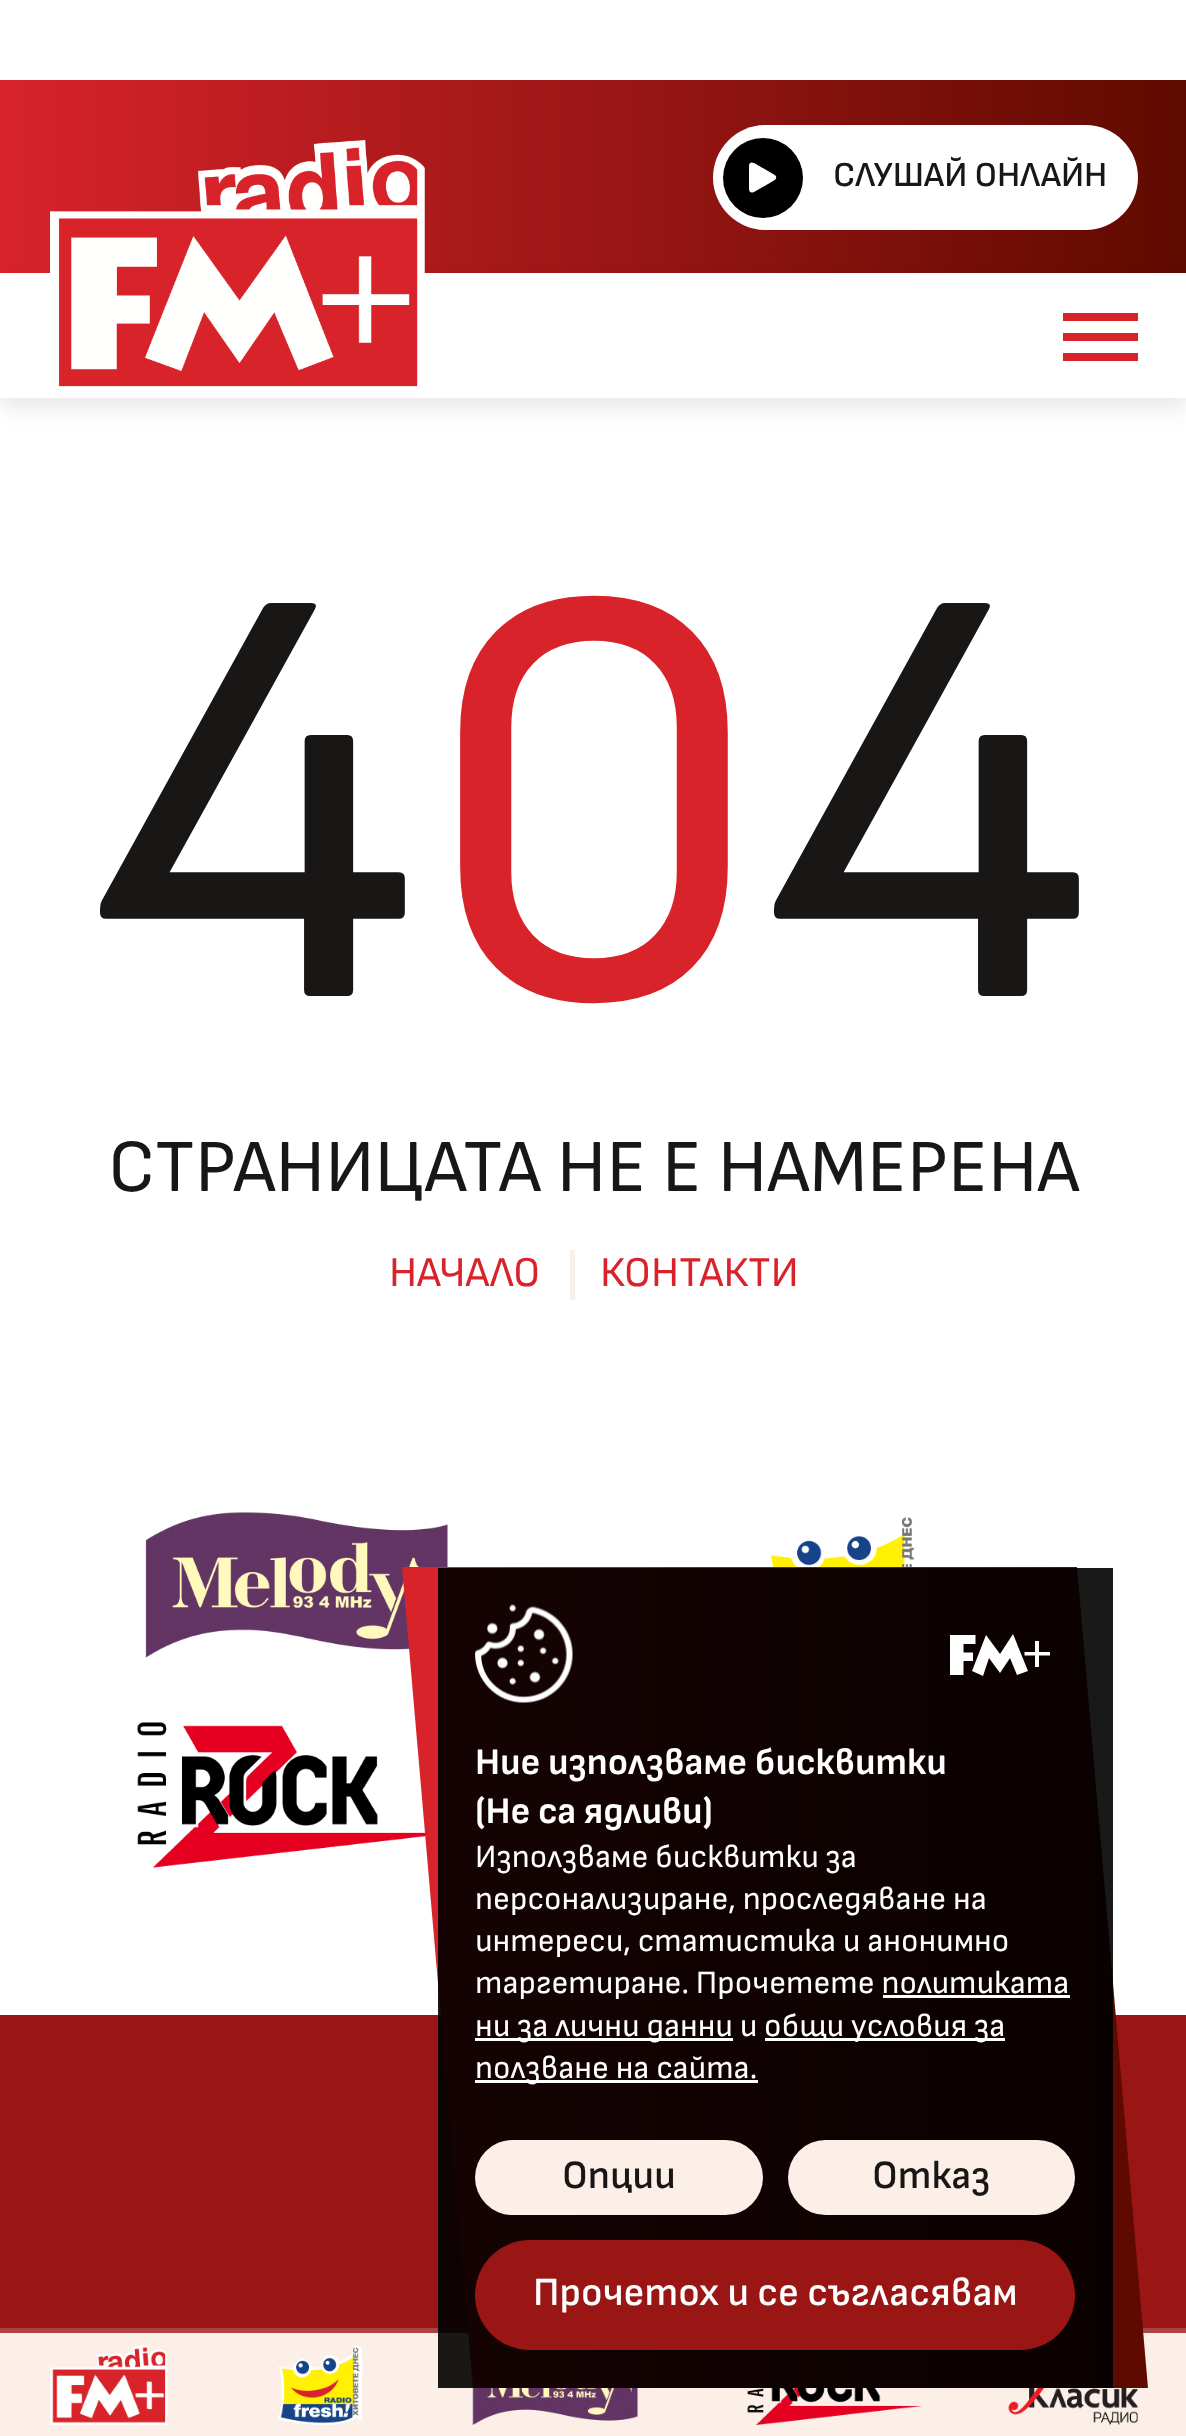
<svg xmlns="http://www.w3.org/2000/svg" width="1186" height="2436">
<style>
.a{font:600 35px Sofia Sans;fill:#191616}
.b{font:600px Sofia Sans;fill:#191616}
.c{font:600px Sofia Sans;fill:#d8232a}
.d{font:75px Sofia Sans;fill:#191616}
.e{font:42.5px Sofia Sans;fill:#d8232a}
.f{font:bold 37.5px Sofia Sans;fill:#fff}
.g{font:32.5px Sofia Sans;fill:#fff}
.h{font:600 40px Sofia Sans;fill:#191616}
.i{font:600 40px Sofia Sans;fill:#fff}
</style>
<defs>
<linearGradient id="g1" gradientUnits="userSpaceOnUse" x1="0" y1="176" x2="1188" y2="176"><stop offset="0" stop-color="#d8232a"/><stop offset="1" stop-color="#5f0a00"/></linearGradient>
<linearGradient id="g2" gradientUnits="userSpaceOnUse" x1="438" y1="1977" x2="1113" y2="1977"><stop offset="0" stop-color="#d8232a"/><stop offset="1" stop-color="#5f0a00"/></linearGradient>
</defs>
<rect width="100%" height="100%" fill="#fff"/>
<path fill="url(#g1)" d="M0 80h1186v193H0z"/>
<path fill="#462b271c" filter="blur(10px)" d="M0 283h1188v125H0z"/>
<path fill="#fff" d="M0 273h1186v125H0z"/>
<image href="1.png" x="50" y="140" width="375" height="247"/>
<rect fill="#fff" x="713" y="125" width="425" height="105" rx="52.5"/>
<circle fill="#000" cx="763" cy="178" r="40"/>
<path fill="#fff" d="M754 163c-3-1.5-5 0-5 3v23c0 3 2 4.5 5 3l20-11.5c3-1.5 3-4.5 0-6z"/>
<path fill="#d8232a" d="M1063 313h75v8H1063z"/>
<path fill="#d8232a" d="M1063 333h75v8H1063z"/>
<path fill="#d8232a" d="M1063 353h75v8H1063z"/>
<path fill="#fbefe8" d="M570 1250h5v50H570z"/>
<path fill="#fbefe8" d="M0 2333h1186v103H0z"/>
<path fill="#ac4241" d="M0 2328h1186v5H0z"/>
<image href="2.png" x="50" y="2345" width="118" height="80"/>
<image href="3.png" x="278" y="2345" width="85" height="80"/>
<image href="4.png" x="472" y="2376" width="166" height="49"/>
<image href="5.png" x="747" y="2388" width="175" height="37"/>
<image href="6.png" x="1008" y="2388" width="130" height="37"/>
<image href="7.png" x="145" y="1512" width="303" height="146"/>
<image href="8.png" x="768" y="1517" width="146" height="50"/>
<image href="9.png" x="137" y="1722" width="289" height="146"/>
<path fill="#991614" d="M0 2015h1186v313H0z"/>
<path fill="url(#g2)" d="M402 1567h675l71 821h-675z"/>
<path fill="#000000e6" d="M438 1568h675v820H438z"/>
<image href="10.png" x="475" y="1604" width="98" height="99"/>
<path fill="#fff" fill-rule="evenodd" d="M1017 1675l-7-17l-10 15l-11-15l-6 18l-11-5l14-36l14 19l13-20l15 37z"/>
<path fill="#fff" fill-rule="evenodd" d="M1050 1655.5h-11v11.5h-4v-11.5h-10.5v-3.5h10.5v-11h4v11h11z"/>
<path fill="#fff" fill-rule="evenodd" d="M950 1675v-40h25.5v9h-12v8.5h9.5v8.5h-9.5v14z"/>
<path fill="#fff" d="M883 1995h187v3H883z"/>
<path fill="#fff" d="M475 2038h258v3H475z"/>
<path fill="#fff" d="M765 2038h240v3H765z"/>
<path fill="#fff" d="M475 2080h283v3H475z"/>
<rect fill="#fbefe8" x="475" y="2140" width="288" height="75" rx="37.5"/>
<rect fill="#fbefe8" x="788" y="2140" width="287" height="75" rx="37.5"/>
<rect fill="#991614" x="475" y="2240" width="600" height="110" rx="55"/>
<text class="a" x="833" y="186">СЛУШАЙ ОНЛАЙН</text>
<text class="b" x="94" y="996">4</text>
<text class="c" x="420" y="996">0</text>
<text class="b" x="768" y="996">4</text>
<text class="d" x="108" y="1191">СТРАНИЦАТА НЕ Е НАМЕРЕНА</text>
<text class="e" x="389" y="1286">НАЧАЛО</text>
<text class="e" x="600" y="1286">КОНТАКТИ</text>
<text class="f" x="475" y="1774">Ние използваме бисквитки</text>
<text class="f" x="475" y="1823">(Не са ядливи)</text>
<text class="g" x="475" y="1867">Използваме бисквитки за</text>
<text class="g" x="475" y="1909">персонализиране, проследяване на</text>
<text class="g" x="475" y="1951">интереси, статистика и анонимно</text>
<text class="g" x="475" y="1993">таргетиране. Прочетете политиката</text>
<text class="g" x="475" y="2036">ни за лични данни и</text>
<text class="g" x="764" y="2036">общи условия за</text>
<text class="g" x="475" y="2078">ползване на сайта.</text>
<text class="h" x="562" y="2188">Опции</text>
<text class="h" x="872" y="2188">Отказ</text>
<text class="i" x="533" y="2305">Прочетох и се съгласявам</text>
</svg>
